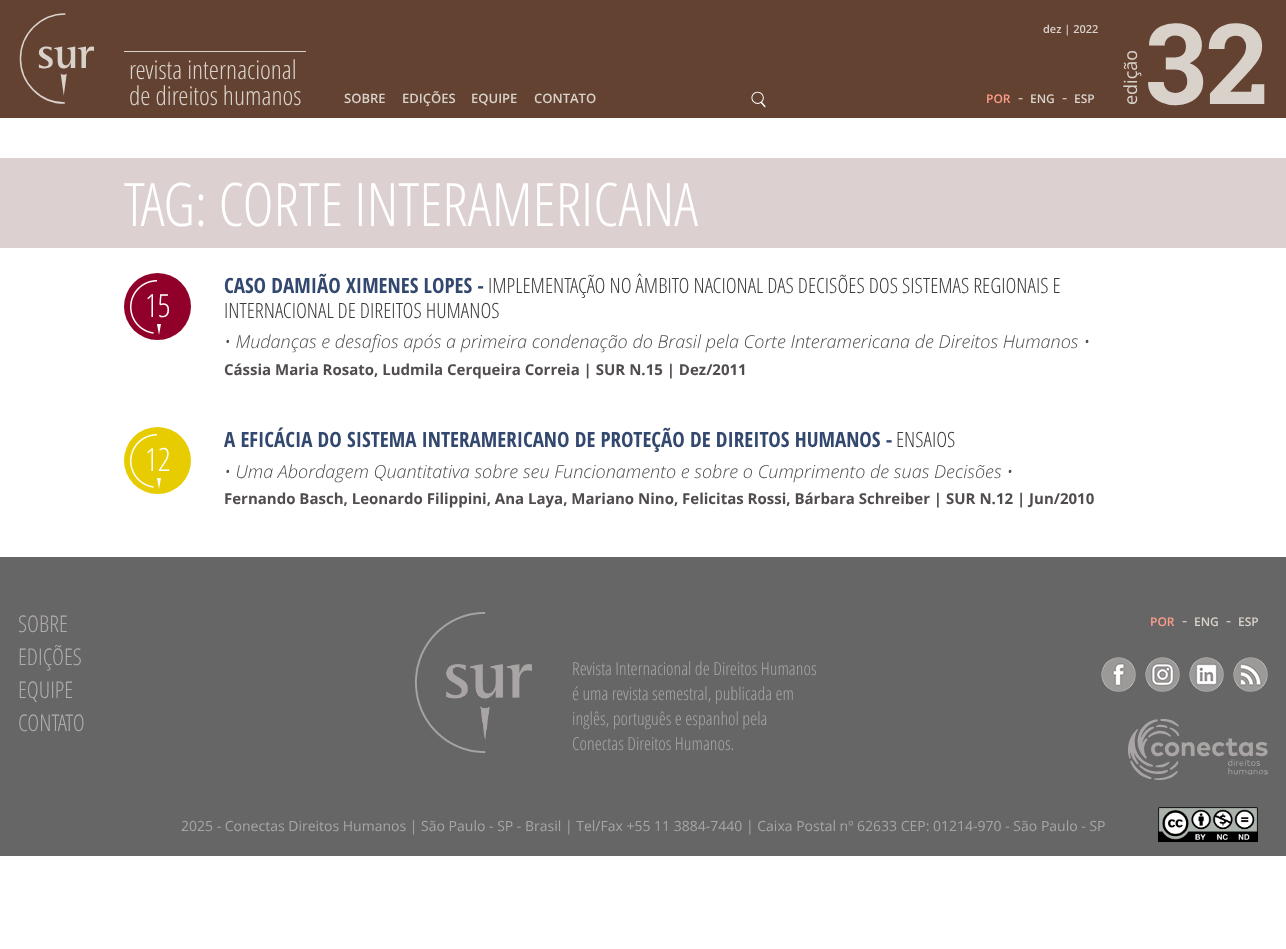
<svg xmlns="http://www.w3.org/2000/svg" width="1286" height="949">
<style>
.a{font:600 11px Open Sans;fill:#d9d2ca}
.b{font:18px Open Sans;fill:#d9d2ca}
.c{font:bold 112px Roboto Slab;fill:#d9d2ca}
.d{font:300 26px Open Sans;fill:#d9d2ca}
.e{font:600 13px Open Sans;fill:#d9d2ca}
.f{font:600 12px Open Sans;fill:#ff9e8a}
.g{font:16px Open Sans;fill:#d9d2ca}
.h{font:600 12px Open Sans;fill:#d9d2ca}
.i{font:300 60px Open Sans;fill:#fff}
.j{font:300 32px Open Sans;fill:#fff}
.k{font:bold 21px Open Sans Condensed;fill:#33486e}
.l{font:300 21px Open Sans;fill:#3b3939}
.m{font:italic 300 18px Open Sans;fill:#514c4e}
.n{font:bold 15px Open Sans;fill:#514c4e}
.o{font:300 23px Open Sans;fill:#b2adad}
.p{font:300 18px Open Sans;fill:#a9a5a5}
.q{font:14px Open Sans;fill:#a9a5a5}
</style>
<rect width="100%" height="100%" fill="#fff"/>
<path fill="#634232" d="M0 0h1286v118H0z"/>
<image href="1.png" x="19" y="13" width="75" height="91"/>
<path fill="#d9d2ca" d="M124 51h182v1H124z"/>
<image href="2.png" x="751" y="91" width="15" height="17"/>
<path fill="#dcd0d1" d="M0 158h1286v90H0z"/>
<circle fill="#910029" cx="157.5" cy="306.5" r="33.5"/>
<image href="3.png" x="130" y="280" width="31" height="55"/>
<circle fill="#e6cc01" cx="157.5" cy="460.5" r="33.5"/>
<image href="4.png" x="130" y="434" width="31" height="55"/>
<path fill="#666" d="M0 557h1286v299H0z"/>
<image href="5.png" x="415" y="612" width="117" height="141"/>
<image href="6.png" x="1101" y="657" width="35" height="35"/>
<image href="7.png" x="1145" y="657" width="35" height="35"/>
<image href="8.png" x="1189" y="657" width="35" height="35"/>
<image href="9.png" x="1233" y="657" width="35" height="35"/>
<image href="10.png" x="1128" y="719" width="140" height="61"/>
<image href="11.png" x="1158" y="807" width="100" height="35"/>
<text class="a" x="1043" y="33">dez | 2022</text>
<text class="b" x="1137" y="105" transform="rotate(-90 1137 105)">edição</text>
<text class="c" x="1145" y="104">32</text>
<text class="d" x="129" y="79">revista internacional</text>
<text class="d" x="129" y="105">de direitos humanos</text>
<text class="e" x="344" y="103">SOBRE</text>
<text class="e" x="402" y="103">EDIÇÕES</text>
<text class="e" x="471" y="103">EQUIPE</text>
<text class="e" x="534" y="103">CONTATO</text>
<text class="f" x="986" y="103">POR</text>
<text class="g" x="1018" y="103">-</text>
<text class="h" x="1030" y="103">ENG</text>
<text class="g" x="1062" y="103">-</text>
<text class="h" x="1074" y="103">ESP</text>
<text class="i" x="124" y="226">TAG: CORTE INTERAMERICANA</text>
<text class="j" x="145" y="317">15</text>
<text class="k" x="224" y="293">CASO DAMIÃO XIMENES LOPES -</text>
<text class="l" x="488" y="293">IMPLEMENTAÇÃO NO ÂMBITO NACIONAL DAS DECISÕES DOS SISTEMAS REGIONAIS E</text>
<text class="l" x="224" y="318">INTERNACIONAL DE DIREITOS HUMANOS</text>
<text class="m" x="224" y="348">• Mudanças e desafios após a primeira condenação do Brasil pela Corte Interamericana de Direitos Humanos •</text>
<text class="n" x="224" y="375">Cássia Maria Rosato, Ludmila Cerqueira Correia | SUR N.15 | Dez/2011</text>
<text class="j" x="145" y="471">12</text>
<text class="k" x="224" y="447">A EFICÁCIA DO SISTEMA INTERAMERICANO DE PROTEÇÃO DE DIREITOS HUMANOS -</text>
<text class="l" x="896" y="447">ENSAIOS</text>
<text class="m" x="224" y="478">• Uma Abordagem Quantitativa sobre seu Funcionamento e sobre o Cumprimento de suas Decisões •</text>
<text class="n" x="224" y="504">Fernando Basch, Leonardo Filippini, Ana Laya, Mariano Nino, Felicitas Rossi, Bárbara Schreiber | SUR N.12 | Jun/2010</text>
<text class="o" x="18" y="632">SOBRE</text>
<text class="o" x="18" y="665">EDIÇÕES</text>
<text class="o" x="18" y="698">EQUIPE</text>
<text class="o" x="18" y="731">CONTATO</text>
<text class="f" x="1150" y="626">POR</text>
<text class="g" x="1182" y="626">-</text>
<text class="h" x="1194" y="626">ENG</text>
<text class="g" x="1226" y="626">-</text>
<text class="h" x="1238" y="626">ESP</text>
<text class="p" x="572" y="675">Revista Internacional de Direitos Humanos</text>
<text class="p" x="572" y="700">é uma revista semestral, publicada em</text>
<text class="p" x="572" y="725">inglês, português e espanhol pela</text>
<text class="p" x="572" y="750">Conectas Direitos Humanos.</text>
<text class="q" x="181" y="831">2025 - Conectas Direitos Humanos | São Paulo - SP - Brasil | Tel/Fax +55 11 3884-7440 | Caixa Postal nº 62633 CEP: 01214-970 - São Paulo - SP</text>
</svg>
